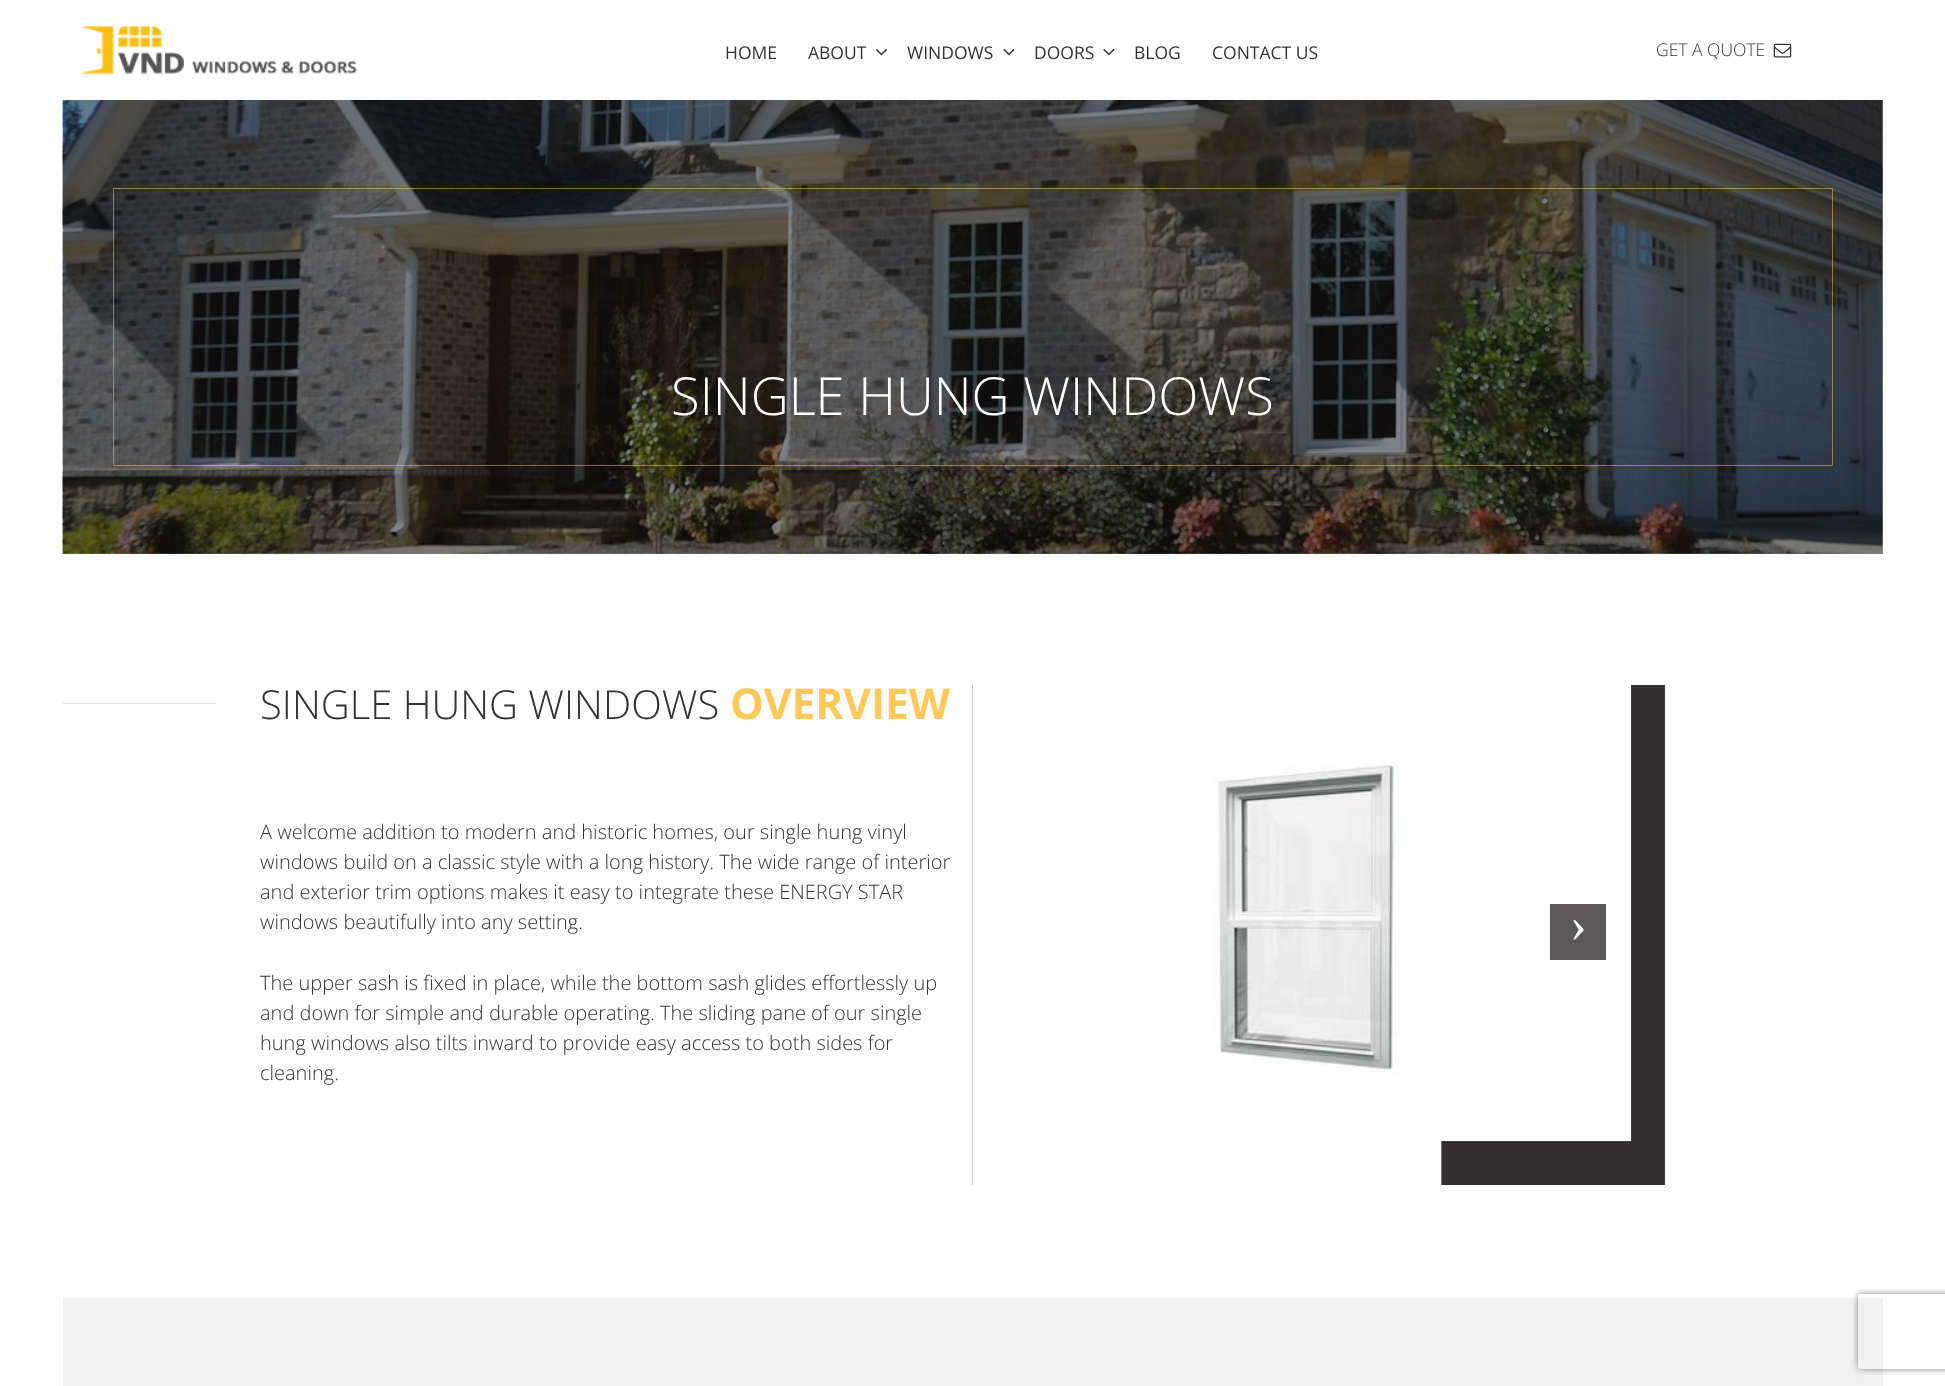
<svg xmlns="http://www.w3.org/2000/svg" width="1945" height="1386">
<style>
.a{font:17.5px Open Sans;fill:#333}
.b{font:300 17.5px Open Sans;fill:#333}
.c{font:300 52.5px Open Sans;fill:#fff}
.d{font:300 40px Open Sans;fill:#333}
.e{font:bold 42.5px Open Sans;fill:#ffc857}
.f{font:300 20px Open Sans;fill:#333}
.g{font:50px Liberation Serif;fill:#fff}
</style>
<defs>
<clipPath id="clip1"><path d="M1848 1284h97v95h-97zm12.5 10h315c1.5 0 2.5 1 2.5 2.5v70c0 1.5-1 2.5-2.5 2.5h-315c-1.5 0-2.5-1-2.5-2.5v-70c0-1.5 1-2.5 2.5-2.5z" clip-rule="evenodd"/></clipPath>
</defs>
<rect width="100%" height="100%" fill="#fff"/>
<path fill="#8b8b8b" d="M63 100h1820v454H63z"/>
<image href="1.png" x="81" y="26" width="276" height="49"/>
<image href="2.png" x="875" y="48" width="12" height="8"/>
<image href="3.png" x="1003" y="48" width="12" height="8"/>
<image href="3.png" x="1103" y="48" width="12" height="8"/>
<image href="4.png" x="1773" y="43" width="19" height="15"/>
<image href="5.png" x="62" y="100" width="1821" height="454"/>
<path fill="none" stroke="#ffc85780" d="M113.5 188.5h1719v277H113.5z"/>
<path fill="#e2e0e1" d="M63 703h153v1H63z"/>
<image href="6.png" x="972" y="685" width="694" height="500"/>
<image href="7.png" x="1212" y="685" width="420" height="457"/>
<path fill="#5b595a" d="M1550 904h56v56H1550z"/>
<path fill="#f1f1f1" d="M63 1298h1820v88H63z"/>
<g clip-path="url(#clip1)">
<rect fill="#808080" filter="blur(3px)" x="1858" y="1294" width="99" height="75" rx="2.5"/>
</g>
<text class="a" x="725" y="59">HOME</text>
<text class="a" x="808" y="59">ABOUT</text>
<text class="a" x="907" y="59">WINDOWS</text>
<text class="a" x="1034" y="59">DOORS</text>
<text class="a" x="1134" y="59">BLOG</text>
<text class="a" x="1212" y="59">CONTACT US</text>
<text class="b" x="1656" y="56">GET A QUOTE</text>
<text class="c" x="671" y="415">SINGLE HUNG WINDOWS</text>
<text class="d" x="260" y="719">SINGLE HUNG WINDOWS</text>
<text class="e" x="730" y="719">OVERVIEW</text>
<text class="f" x="260" y="839">A welcome addition to modern and historic homes, our single hung vinyl</text>
<text class="f" x="260" y="869">windows build on a classic style with a long history. The wide range of interior</text>
<text class="f" x="260" y="899">and exterior trim options makes it easy to integrate these ENERGY STAR</text>
<text class="f" x="260" y="929">windows beautifully into any setting.</text>
<text class="f" x="260" y="990">The upper sash is fixed in place, while the bottom sash glides effortlessly up</text>
<text class="f" x="260" y="1020">and down for simple and durable operating. The sliding pane of our single</text>
<text class="f" x="260" y="1050">hung windows also tilts inward to provide easy access to both sides for</text>
<text class="f" x="260" y="1080">cleaning.</text>
<text class="g" x="1570" y="941">›</text>
</svg>
